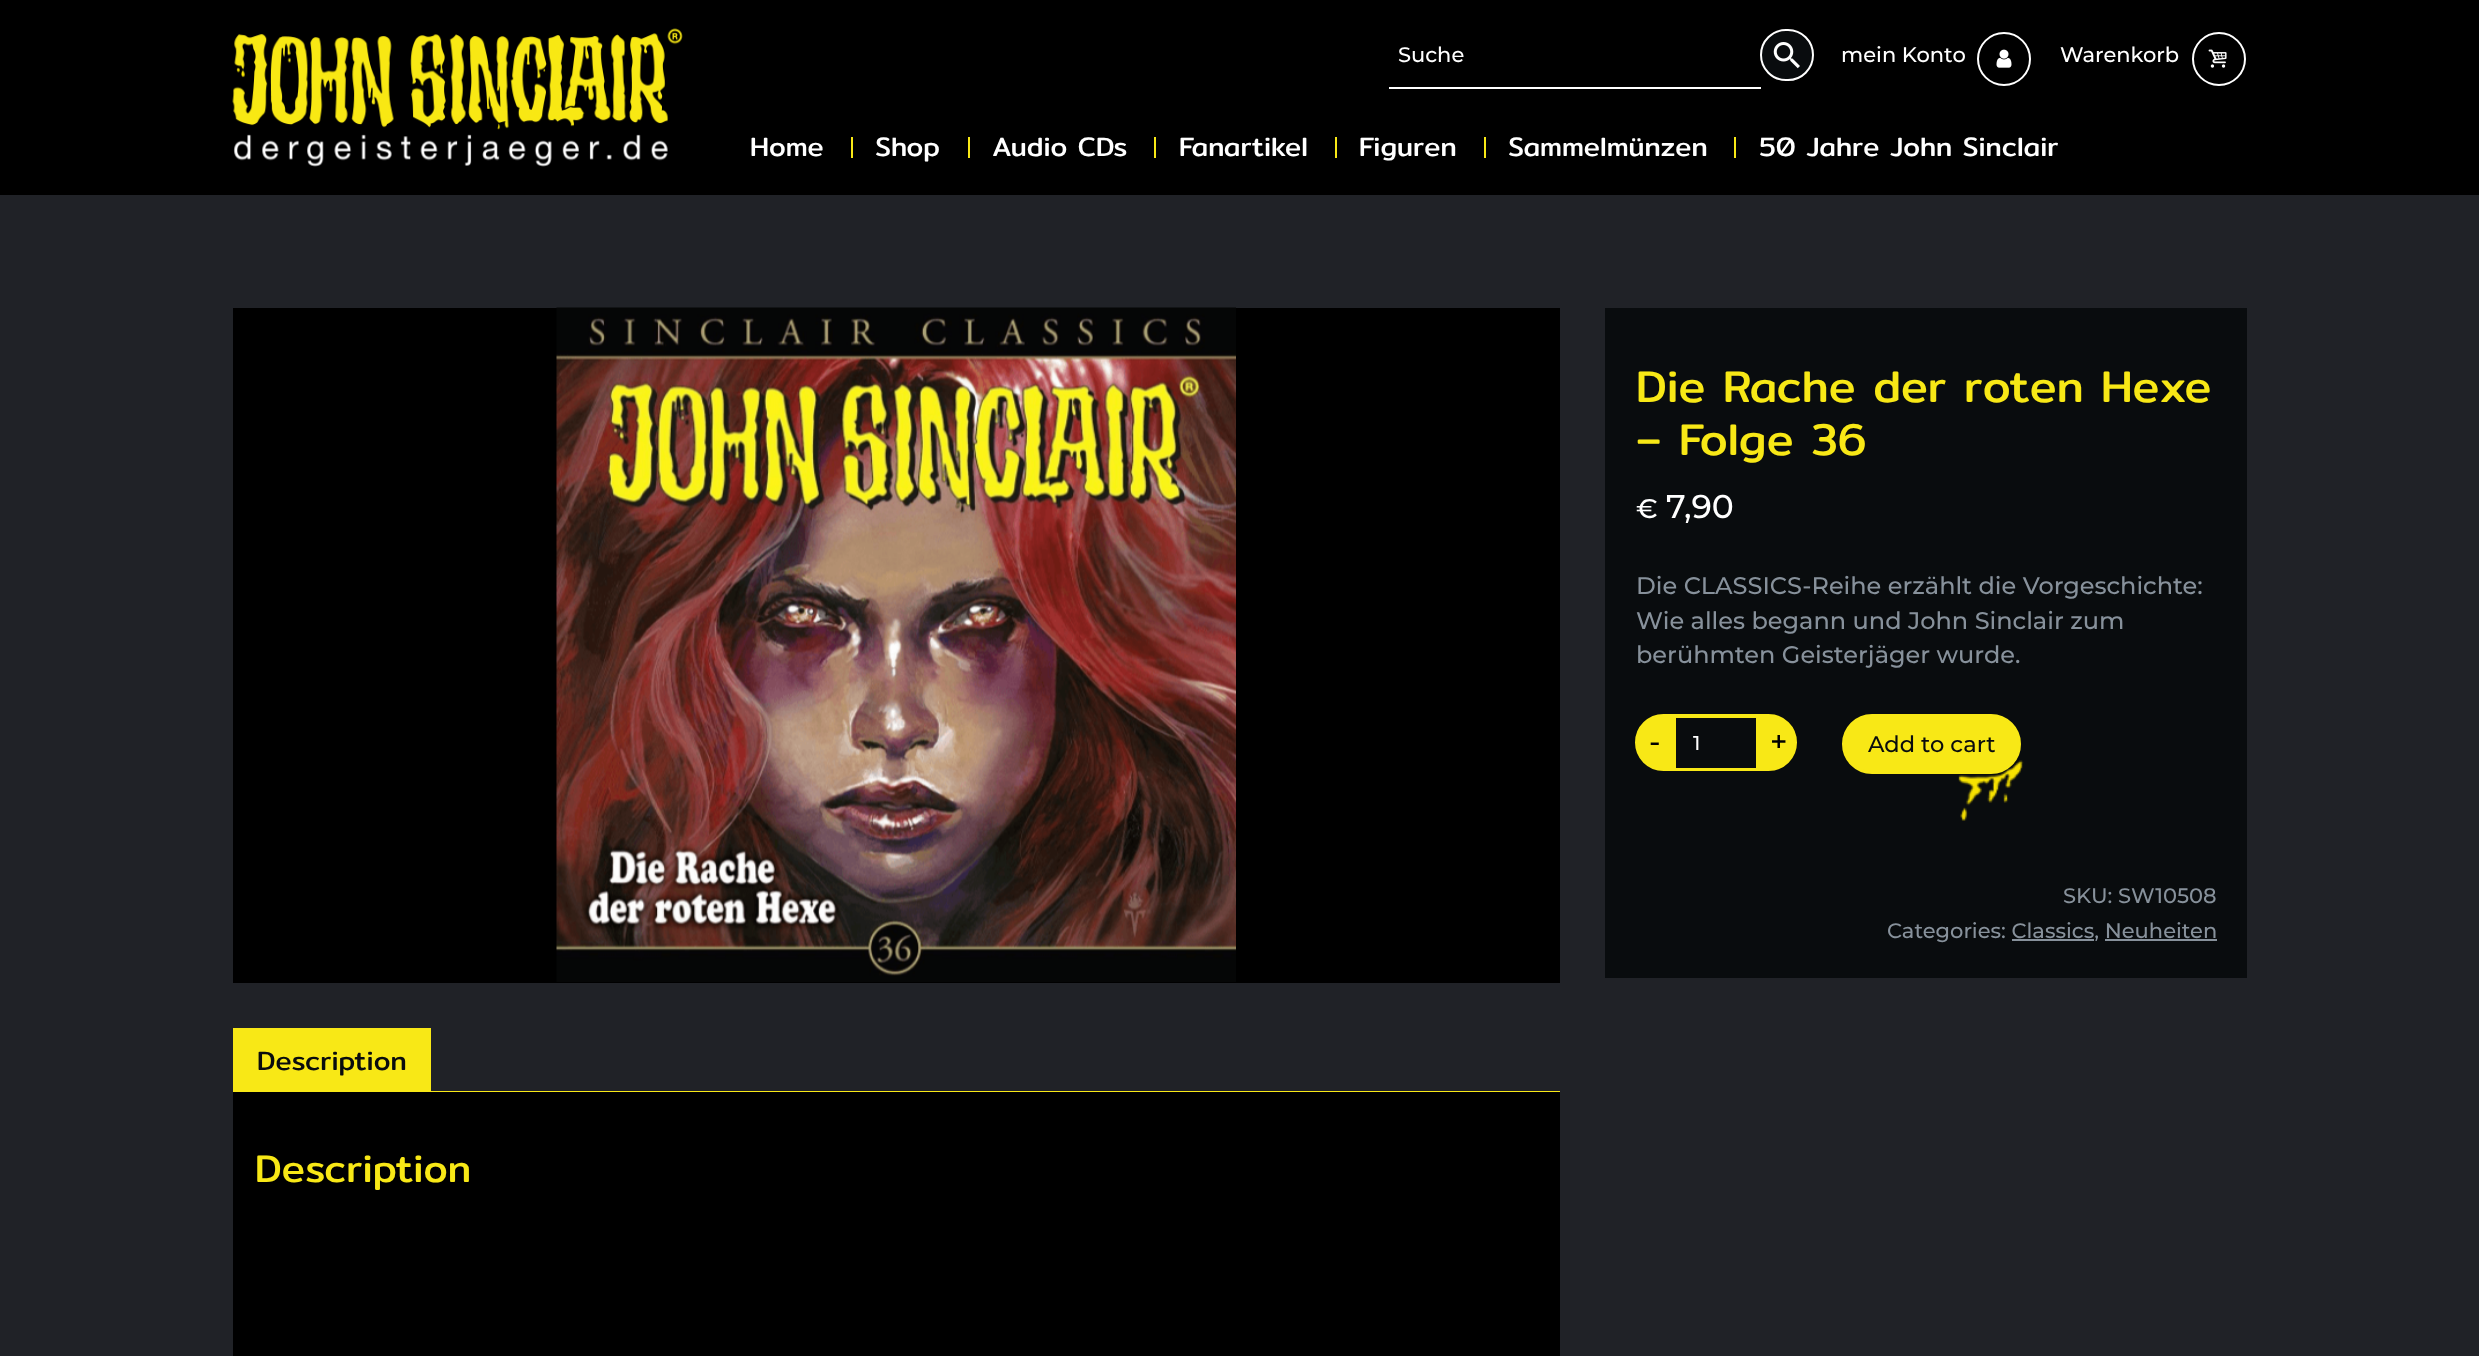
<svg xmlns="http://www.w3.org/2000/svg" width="2479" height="1356">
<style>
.a{font:500 21px Montserrat;fill:#fff}
.b{font:27px Mitr;fill:#fff}
.c{font:45px Mitr;fill:#f8e816}
.d{font:500 27px Montserrat;fill:#fff}
.e{font:500 33px Montserrat;fill:#fff}
.f{font:500 24px Montserrat;fill:#87919b}
.g{font:500 30px Montserrat;fill:#000}
.h{font:500 20px Montserrat;fill:#fff}
.i{font:500 22.5px Montserrat;fill:#090c0e}
.j{font:500 21px Montserrat;fill:#87919b}
.k{font:27px Mitr;fill:#090c0e}
.l{font:39px Mitr;fill:#f8e816}
</style>
<rect width="100%" height="100%" fill="#202227"/>
<path fill="#000" d="M0 0h2479v195H0z"/>
<image href="1.png" x="232" y="28" width="451" height="139"/>
<path fill="#fff" d="M1389 87h372v2H1389z"/>
<rect fill="#090c0e" stroke="#fff" stroke-width="2" x="1761" y="30" width="52" height="50" rx="25"/>
<image href="2.png" x="1773" y="42" width="27" height="27"/>
<circle fill="none" stroke="#fff" stroke-width="2" cx="2004" cy="59" r="26"/>
<image href="3.png" x="1996" y="49" width="16" height="19"/>
<circle fill="none" stroke="#fff" stroke-width="2" cx="2219" cy="59" r="26"/>
<image href="4.png" x="2208" y="49" width="19" height="19"/>
<path fill="#f8e816" d="M851 137h2v21H851z"/>
<path fill="#f8e816" d="M968 137h2v21H968z"/>
<path fill="#f8e816" d="M1154 137h2v21H1154z"/>
<path fill="#f8e816" d="M1335 137h2v21H1335z"/>
<path fill="#f8e816" d="M1484 137h2v21H1484z"/>
<path fill="#f8e816" d="M1734 137h2v21H1734z"/>
<path fill="#090c0e" d="M1605 308h642v670H1605z"/>
<rect fill="#f8e816" stroke="#f8e816" stroke-width="2" x="1636" y="715" width="160" height="55" rx="27.5"/>
<path fill="#090c0e" d="M1676 718h80v50H1676z"/>
<rect fill="#f8e816" stroke="#f8e816" stroke-width="3" x="1843.5" y="715.5" width="176" height="57" rx="28.5"/>
<image href="5.png" x="1958" y="760" width="66" height="61"/>
<path fill="#87919b" d="M2012 939h82v2H2012z"/>
<path fill="#87919b" d="M2105 939h112v2H2105z"/>
<path fill="#000" d="M233 308h1327v675H233z"/>
<image href="6.png" x="556" y="307" width="680" height="675"/>
<path fill="#f8e816" d="M233 1091h1327v1H233z"/>
<path fill="#f8e816" d="M233 1028h198v63H233z"/>
<path fill="#000" d="M233 1092h1327v264H233z"/>
<text class="a" x="1398" y="62">Suche</text>
<text class="a" x="1841" y="62">mein Konto</text>
<text class="a" x="2060" y="62">Warenkorb</text>
<text class="b" x="750" y="156">Home</text>
<text class="b" x="875" y="156">Shop</text>
<text class="b" x="992" y="156">Audio CDs</text>
<text class="b" x="1179" y="156">Fanartikel</text>
<text class="b" x="1359" y="156">Figuren</text>
<text class="b" x="1508" y="156">Sammelmünzen</text>
<text class="b" x="1759" y="156">50 Jahre John Sinclair</text>
<text class="c" x="1636" y="402">Die Rache der roten Hexe</text>
<text class="c" x="1636" y="455">– Folge 36</text>
<text class="d" x="1636" y="518">€</text>
<text class="e" x="1666" y="518">7,90</text>
<text class="f" x="1636" y="594">Die CLASSICS-Reihe erzählt die Vorgeschichte:</text>
<text class="f" x="1636" y="629">Wie alles begann und John Sinclair zum</text>
<text class="f" x="1636" y="663">berühmten Geisterjäger wurde.</text>
<text class="g" x="1649" y="752">-</text>
<text class="h" x="1693" y="750">1</text>
<text class="g" x="1770" y="752">+</text>
<text class="i" x="1868" y="752">Add to cart</text>
<text class="j" x="2063" y="903">SKU: SW10508</text>
<text class="j" x="1887" y="938">Categories: Classics, Neuheiten</text>
<text class="k" x="257" y="1070">Description</text>
<text class="l" x="255" y="1182">Description</text>
</svg>
